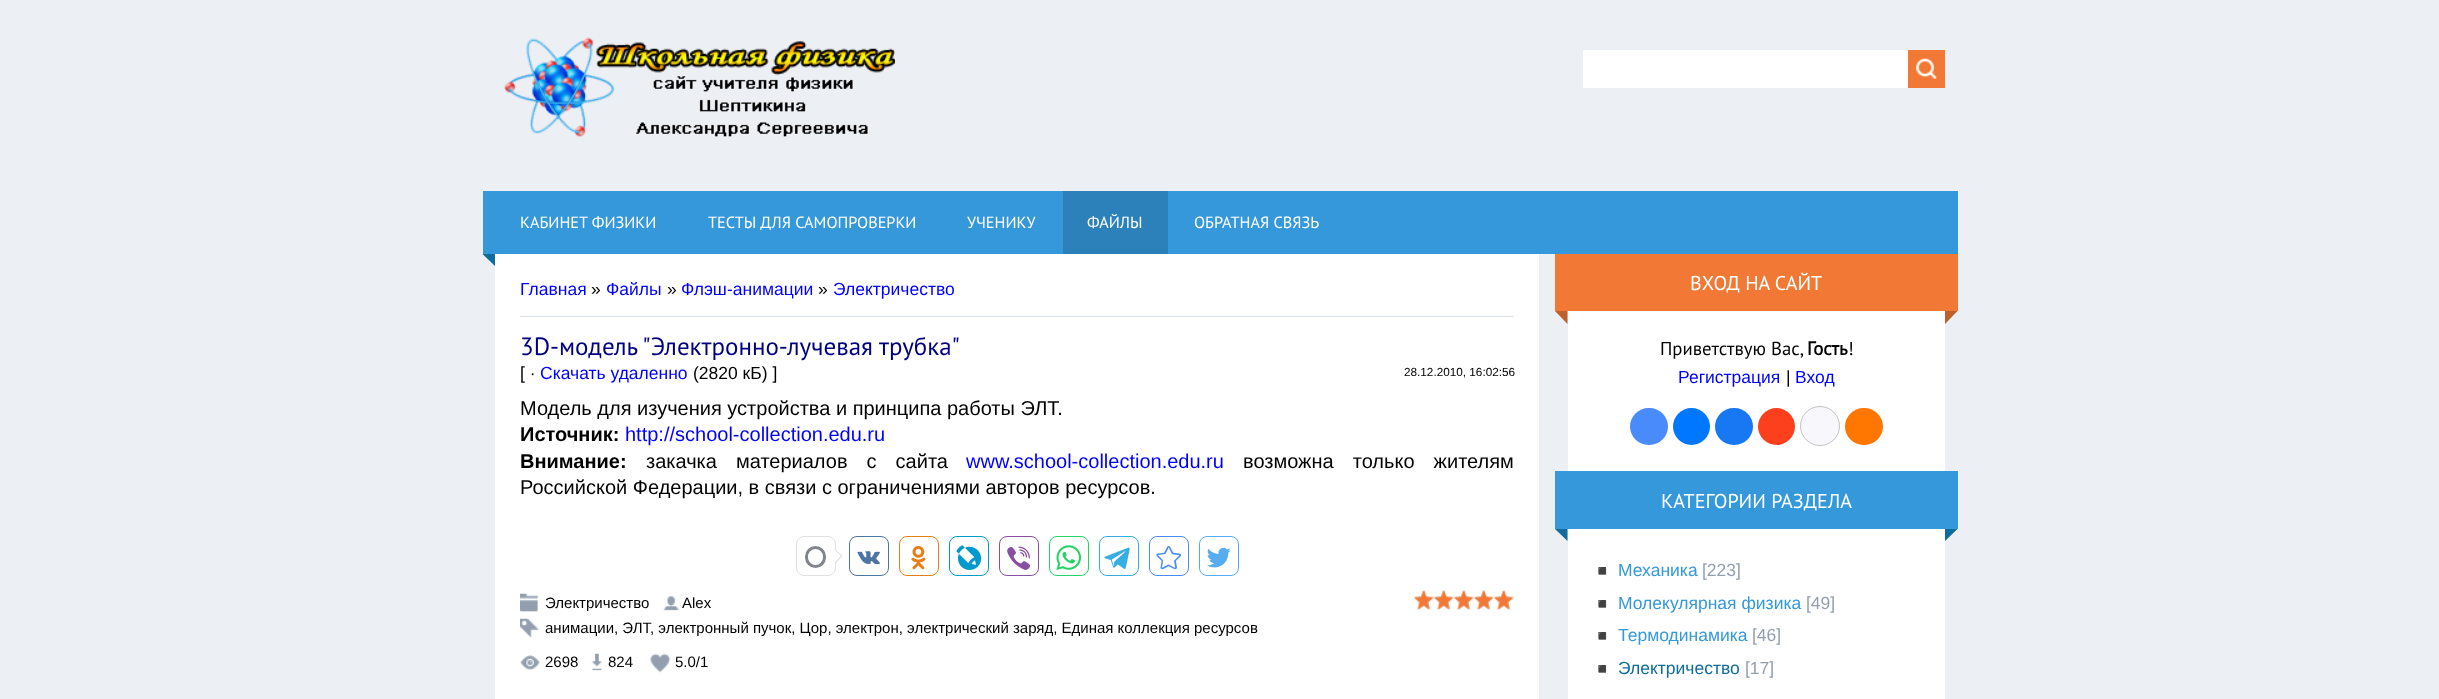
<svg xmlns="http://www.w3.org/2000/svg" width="2439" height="699">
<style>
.a{font:16.25px PT Sans;fill:#fff}
.b{font:17.5px Liberation Sans;fill:#00f}
.c{font:17.5px Liberation Sans;fill:#000}
.d{font:25px PT Sans;fill:#000080}
.e{font:11.75px Liberation Sans;fill:#000}
.f{font:20px Liberation Sans;fill:#000}
.g{font:bold 20px Liberation Sans;fill:#000}
.h{font:20px Liberation Sans;fill:#00f}
.i{font:15px Liberation Sans;fill:#000}
.j{font:20px PT Sans;fill:#fff}
.k{font:18.75px PT Sans;fill:#000}
.l{font:bold 18.75px PT Sans;fill:#000}
.m{font:15px Noto Color Emoji;fill:#dadddf}
.n{font:17.5px Liberation Sans;fill:#3498db}
.o{font:17.5px Liberation Sans;fill:#939fae}
.p{font:15px Noto Color Emoji;fill:#939fae}
.q{font:17.5px Liberation Sans;fill:#0f6d9e}
</style>
<rect width="100%" height="100%" fill="#eceff3"/>
<image href="1.png" x="503" y="37" width="392" height="100"/>
<path fill="#fff" d="M1583 50h325v38H1583z"/>
<path fill="#f27935" d="M1908 50h37v38H1908z"/>
<image href="2.png" x="1916" y="58" width="21" height="21"/>
<path fill="#3498db" d="M483 191h1475v63H483z"/>
<path fill="#2c81ba" d="M1063 191h105v63H1063z"/>
<path fill="#0f6d9e" d="M482.5 254h12.5v12z"/>
<path fill="#fff" d="M495 254h1044v445H495z"/>
<path fill="#dbe1e8" d="M520 316h994v1H520z"/>
<rect fill="none" stroke="#e0e2e6" x="796.5" y="536.5" width="39" height="39" rx="7.5"/>
<rect fill="none" stroke="#81858b" stroke-width="3" x="806.5" y="547.5" width="18" height="19" rx="9"/>
<path fill="#d8dcde" d="M835 564v-15l7.5 7z"/>
<path fill="#fff" d="M835 562.5v-12.5l6 6z"/>
<rect fill="none" stroke="#4d75a3" x="849.5" y="536.5" width="39" height="39" rx="7.5"/>
<image href="3.png" x="857" y="551" width="23" height="13"/>
<rect fill="none" stroke="#e67e17" x="899.5" y="536.5" width="39" height="39" rx="7.5"/>
<image href="4.png" x="911" y="545" width="15" height="25"/>
<rect fill="none" stroke="#09c" x="949.5" y="536.5" width="39" height="39" rx="7.5"/>
<image href="5.png" x="956" y="545" width="26" height="25"/>
<rect fill="none" stroke="#8950a1" x="999.5" y="536.5" width="39" height="39" rx="7.5"/>
<image href="6.png" x="1007" y="546" width="24" height="24"/>
<rect fill="none" stroke="#25d366" x="1049.5" y="536.5" width="39" height="39" rx="7.5"/>
<image href="7.png" x="1056" y="545" width="25" height="25"/>
<rect fill="none" stroke="#37aee2" x="1099.5" y="536.5" width="39" height="39" rx="7.5"/>
<image href="8.png" x="1104" y="547" width="26" height="22"/>
<rect fill="none" stroke="#498bfa" x="1149.5" y="536.5" width="39" height="39" rx="7.5"/>
<image href="9.png" x="1156" y="546" width="25" height="24"/>
<rect fill="none" stroke="#55acee" x="1199.5" y="536.5" width="39" height="39" rx="7.5"/>
<image href="10.png" x="1207" y="547" width="24" height="21"/>
<image href="11.png" x="520" y="593" width="18" height="19"/>
<image href="12.png" x="663" y="596" width="16" height="15"/>
<image href="13.png" x="1414" y="590" width="100" height="20"/>
<image href="14.png" x="1413" y="590" width="101" height="20"/>
<image href="15.png" x="520" y="618" width="19" height="20"/>
<image href="16.png" x="520" y="655" width="20" height="16"/>
<image href="17.png" x="591" y="653" width="12" height="18"/>
<image href="18.png" x="650" y="653" width="21" height="20"/>
<path fill="#fff" d="M1568 311h377v388H1568z"/>
<path fill="#f27935" d="M1555 254h403v57H1555z"/>
<path fill="#bf602a" d="M1555 311h12.5v13z"/>
<path fill="#bf602a" d="M1945 311h12.5l-12.5 13z"/>
<rect fill="#498bfa" x="1630" y="408" width="38" height="37" rx="18.5"/>
<circle fill="#07f" cx="1691.5" cy="426.5" r="18.5"/>
<rect fill="#1877f2" x="1715" y="408" width="38" height="37" rx="18.5"/>
<circle fill="#fc3f1d" cx="1776.5" cy="426.5" r="18.5"/>
<circle fill="#f8f8fc" stroke="#c4c4c4" cx="1820" cy="426" r="19.5"/>
<rect fill="#f70" x="1845" y="408" width="38" height="37" rx="18.5"/>
<path fill="#3498db" d="M1555 471h403v58H1555z"/>
<path fill="#0f6d9e" d="M1555 529h12.5v12z"/>
<path fill="#0f6d9e" d="M1945 529h12.5l-12.5 12z"/>
<text class="a" x="520" y="228">КАБИНЕТ ФИЗИКИ</text>
<text class="a" x="708" y="228">ТЕСТЫ ДЛЯ САМОПРОВЕРКИ</text>
<text class="a" x="967" y="228">УЧЕНИКУ</text>
<text class="a" x="1087" y="228">ФАЙЛЫ</text>
<text class="a" x="1194" y="228">ОБРАТНАЯ СВЯЗЬ</text>
<text class="b" x="520" y="295">Главная</text>
<text class="c" x="591" y="295">»</text>
<text class="b" x="606" y="295">Файлы</text>
<text class="c" x="667" y="295">»</text>
<text class="b" x="681" y="295">Флэш-анимации</text>
<text class="c" x="818" y="295">»</text>
<text class="b" x="833" y="295">Электричество</text>
<text class="d" x="520" y="355">3D-модель "Электронно-лучевая трубка"</text>
<text class="c" x="520" y="379">[ ·</text>
<text class="b" x="540" y="379">Скачать удаленно</text>
<text class="c" x="693" y="379">(2820 кБ) ]</text>
<text class="e" x="1404" y="376">28.12.2010, 16:02:56</text>
<text class="f" x="520" y="415">Модель для изучения устройства и принципа работы ЭЛТ.</text>
<text class="g" x="520" y="441">Источник:</text>
<text class="h" x="625" y="441">http://school-collection.edu.ru</text>
<text class="g" x="520" y="468">Внимание:</text>
<text class="f" x="646" y="468" word-spacing="13.5">закачка материалов с сайта</text>
<text class="h" x="966" y="468">www.school-collection.edu.ru</text>
<text class="f" x="1243" y="468" word-spacing="13.5">возможна только жителям</text>
<text class="f" x="520" y="494">Российской Федерации, в связи с ограничениями авторов ресурсов.</text>
<text class="i" x="545" y="608">Электричество</text>
<text class="i" x="682" y="608">Alex</text>
<text class="i" x="545" y="633">анимации, ЭЛТ</text>
<text class="i" x="650" y="633">, электронный пучок, Цор, электрон, электрический заряд, Единая коллекция ресурсов</text>
<text class="i" x="545" y="667">2698</text>
<text class="i" x="608" y="667">824</text>
<text class="i" x="675" y="667">5.0/1</text>
<text class="j" x="1690" y="290">ВХОД НА САЙТ</text>
<text class="k" x="1660" y="355">Приветствую Вас,</text>
<text class="l" x="1807" y="355">Гость</text>
<text class="k" x="1848" y="355">!</text>
<text class="b" x="1678" y="383">Регистрация</text>
<text class="c" x="1786" y="383">|</text>
<text class="b" x="1795" y="383">Вход</text>
<text class="j" x="1661" y="508">КАТЕГОРИИ РАЗДЕЛА</text>
<text class="m" x="1593" y="576">◾</text>
<text class="n" x="1618" y="576">Механика</text>
<text class="o" x="1702" y="576">[223]</text>
<text class="m" x="1593" y="609">◾</text>
<text class="n" x="1618" y="609">Молекулярная физика</text>
<text class="o" x="1806" y="609">[49]</text>
<text class="m" x="1593" y="641">◾</text>
<text class="n" x="1618" y="641">Термодинамика</text>
<text class="o" x="1752" y="641">[46]</text>
<text class="p" x="1593" y="674">◾</text>
<text class="q" x="1618" y="674">Электричество</text>
<text class="o" x="1745" y="674">[17]</text>
</svg>
